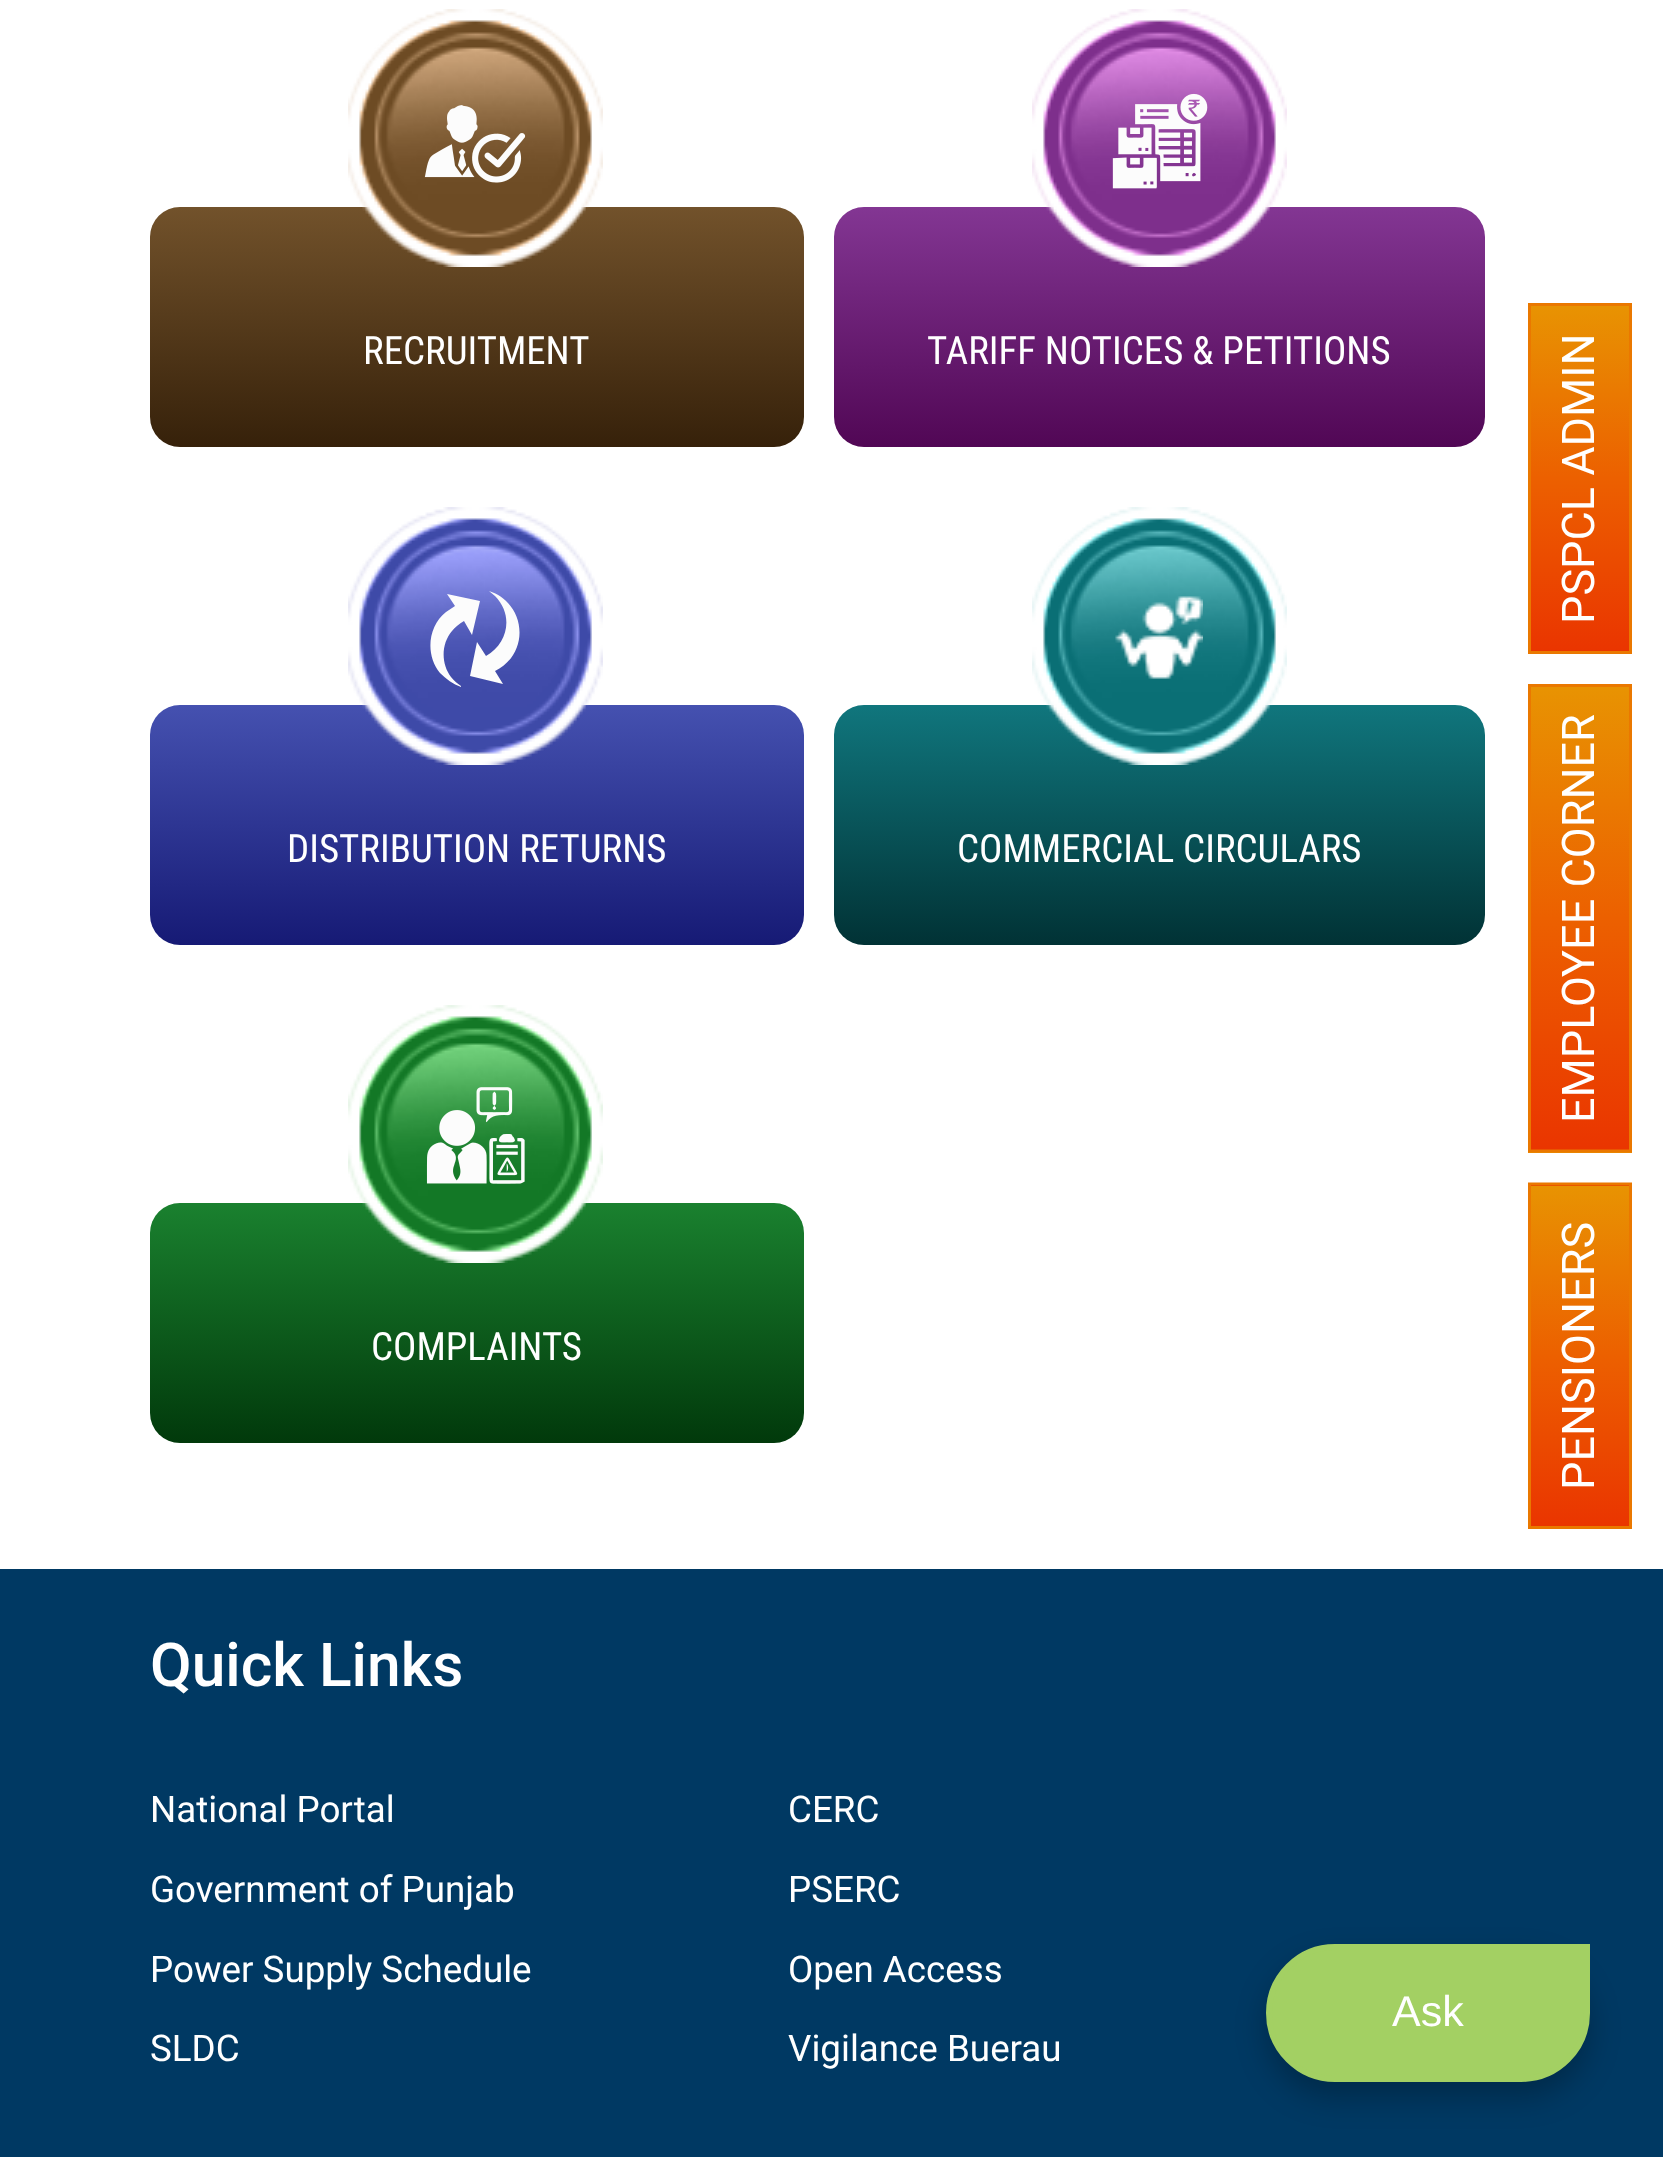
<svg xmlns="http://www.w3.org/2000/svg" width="1663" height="2157">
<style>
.a{font:38.9px Roboto Condensed;fill:#fff}
.b{font:45px Roboto;fill:#fff}
.c{font:500 60.5px Roboto;fill:#fff}
.d{font:36.75px Roboto;fill:#fff}
.e{font:43px Liberation Sans;fill:#fff}
</style>
<defs>
<linearGradient id="g1" gradientUnits="userSpaceOnUse" x1="477" y1="207" x2="477" y2="447"><stop offset="0" stop-color="#72522b"/><stop offset="1" stop-color="#36210a"/></linearGradient>
<linearGradient id="g2" gradientUnits="userSpaceOnUse" x1="1160" y1="207" x2="1160" y2="447"><stop offset="0" stop-color="#833693"/><stop offset="1" stop-color="#510755"/></linearGradient>
<linearGradient id="g3" gradientUnits="userSpaceOnUse" x1="477" y1="705" x2="477" y2="945"><stop offset="0" stop-color="#4551b0"/><stop offset="1" stop-color="#161a75"/></linearGradient>
<linearGradient id="g4" gradientUnits="userSpaceOnUse" x1="1160" y1="705" x2="1160" y2="945"><stop offset="0" stop-color="#10767d"/><stop offset="1" stop-color="#013235"/></linearGradient>
<linearGradient id="g5" gradientUnits="userSpaceOnUse" x1="477" y1="1203" x2="477" y2="1443"><stop offset="0" stop-color="#1a812f"/><stop offset="1" stop-color="#01390b"/></linearGradient>
<linearGradient id="g6" gradientUnits="userSpaceOnUse" x1="1580" y1="651" x2="1580" y2="306"><stop offset="0" stop-color="#ea3500"/><stop offset="0.5" stop-color="#ec6000"/><stop offset="1" stop-color="#e89302"/></linearGradient>
<linearGradient id="g7" gradientUnits="userSpaceOnUse" x1="1580" y1="1612" x2="1580" y2="1150"><stop offset="0" stop-color="#ea3500"/><stop offset="0.5" stop-color="#ec6000"/><stop offset="1" stop-color="#e89302"/></linearGradient>
<linearGradient id="g8" gradientUnits="userSpaceOnUse" x1="1580" y1="1150" x2="1580" y2="687"><stop offset="0" stop-color="#ea3500"/><stop offset="0.5" stop-color="#ec6000"/><stop offset="1" stop-color="#e89302"/></linearGradient>
<linearGradient id="g9" gradientUnits="userSpaceOnUse" x1="1580" y1="1526" x2="1580" y2="1186"><stop offset="0" stop-color="#ea3500"/><stop offset="0.5" stop-color="#ec6000"/><stop offset="1" stop-color="#e89302"/></linearGradient>
<linearGradient id="g10" gradientUnits="userSpaceOnUse" x1="1580" y1="1186" x2="1580" y2="846"><stop offset="0" stop-color="#ea3500"/><stop offset="0.5" stop-color="#ec6000"/><stop offset="1" stop-color="#e89302"/></linearGradient>
</defs>
<rect width="100%" height="100%" fill="#fff"/>
<rect fill="url(#g1)" x="150" y="207" width="654" height="240" rx="30"/>
<image href="1.png" x="348" y="9" width="255" height="258"/>
<image href="2.png" x="424" y="105" width="102" height="78"/>
<rect fill="url(#g2)" x="834" y="207" width="651" height="240" rx="30"/>
<image href="3.png" x="1032" y="9" width="255" height="258"/>
<image href="4.png" x="1112" y="93" width="96" height="96"/>
<rect fill="url(#g3)" x="150" y="705" width="654" height="240" rx="30"/>
<image href="5.png" x="348" y="507" width="255" height="258"/>
<path fill="#fcfcfc" d="M489 591c37 12 42 62 6 80l8 13l-33-8l7-34l9 14c22-12 28-41 9-60zm-28 96c-8-3-15-8-21-14c-15-18-12-47 6-61l9-6l-8-12l33 7l-8 34l-8-14c-5 3-9 6-12 10c-11 13-11 33-1 46c3 4 7 7 10 9z"/>
<rect fill="url(#g4)" x="834" y="705" width="651" height="240" rx="30"/>
<image href="6.png" x="1032" y="507" width="255" height="258"/>
<image href="7.png" x="1115" y="596" width="88" height="83"/>
<rect fill="url(#g5)" x="150" y="1203" width="654" height="240" rx="30"/>
<image href="8.png" x="348" y="1005" width="255" height="258"/>
<image href="9.png" x="426" y="1087" width="99" height="97"/>
<path fill="url(#g6)" d="M1531 306h98v345H1531z"/>
<path fill="none" stroke="#ea7800" stroke-width="3" d="M1529.5 652.5v-348h101v348z"/>
<path fill="url(#g7)" d="M1528 1152h104v1H1528z"/>
<path fill="url(#g8)" d="M1531 687h98v463H1531z"/>
<path fill="none" stroke="#ea7800" stroke-width="3" d="M1529.5 1151v-465.5h101v465.5z"/>
<path fill="url(#g9)" d="M1531 1186h98v340H1531z"/>
<path fill="url(#g10)" d="M1528 1185h104v1H1528z"/>
<path fill="none" stroke="#ea7800" stroke-width="3" d="M1529.5 1527.5v-343.5h101v343.5z"/>
<path fill="#003963" d="M0 1569h1663v588H0z"/>
<rect fill="#00000040" filter="blur(15px)" x="1266" y="1959" width="324" height="138" rx="69"/>
<path fill="#a3d063" stroke="#a3d063" stroke-width="6" d="M1335 1947h252v66c0 36.5-29.5 66-66 66h-186c-36.5 0-66-29.5-66-66c0-36.5 29.5-66 66-66z"/>
<text class="a" x="363" y="364">RECRUITMENT</text>
<text class="a" x="927" y="364">TARIFF NOTICES &amp; PETITIONS</text>
<text class="a" x="287" y="862">DISTRIBUTION RETURNS</text>
<text class="a" x="957" y="862">COMMERCIAL CIRCULARS</text>
<text class="a" x="371" y="1360">COMPLAINTS</text>
<text class="b" x="1594" y="624" transform="rotate(-90 1594 624)">PSPCL ADMIN</text>
<text class="b" x="1594" y="1123" transform="rotate(-90 1594 1123)">EMPLOYEE CORNER</text>
<text class="b" x="1594" y="1490" transform="rotate(-90 1594 1490)">PENSIONERS</text>
<text class="c" x="150" y="1686">Quick Links</text>
<text class="d" x="150" y="1822">National Portal</text>
<text class="d" x="150" y="1902">Government of Punjab</text>
<text class="d" x="150" y="1982">Power Supply Schedule</text>
<text class="d" x="150" y="2061">SLDC</text>
<text class="d" x="788" y="1822">CERC</text>
<text class="d" x="788" y="1902">PSERC</text>
<text class="d" x="788" y="1982">Open Access</text>
<text class="d" x="788" y="2061">Vigilance Buerau</text>
<text class="e" x="1392" y="2026">Ask</text>
</svg>
